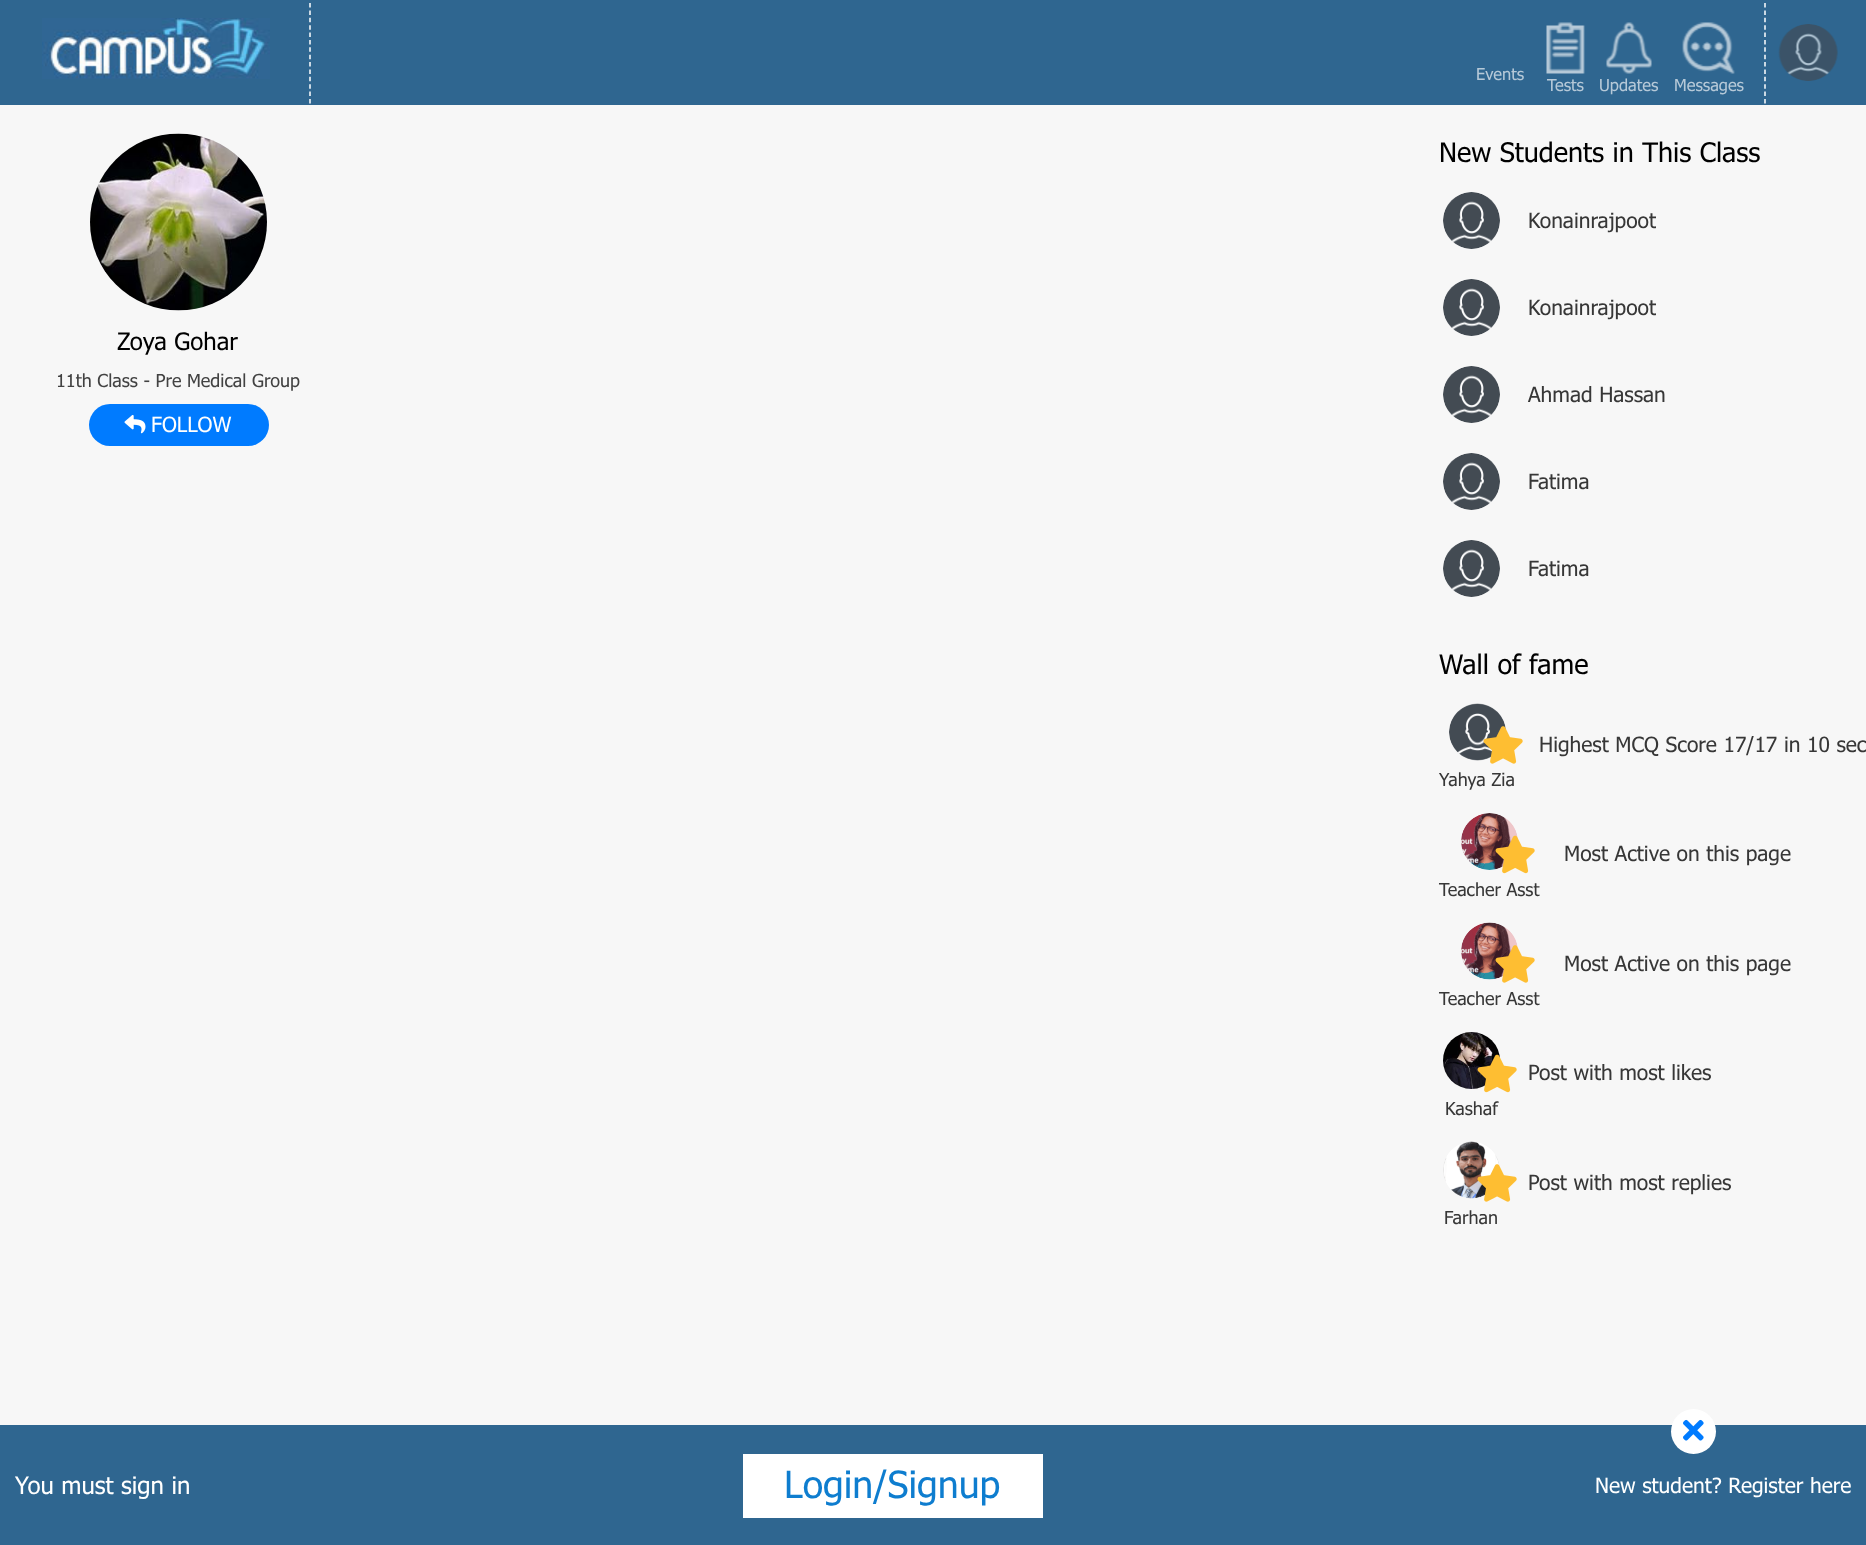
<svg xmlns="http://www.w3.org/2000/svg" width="1866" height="1545">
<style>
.a{font:16.5px Tahoma;fill:#b6c9d8}
.b{font:24px Tahoma;fill:#000}
.c{font:18px Tahoma;fill:#424242}
.d{font:21px Tahoma;fill:#fff}
.e{font:27px Tahoma;fill:#000}
.f{font:21px Tahoma;fill:#373737}
.g{font:18px Tahoma;fill:#373737}
.h{font:24px Tahoma;fill:#fff}
.i{font:37.5px Tahoma;fill:#0e7dcf}
</style>
<rect width="100%" height="100%" fill="#f7f7f7"/>
<path fill="#2f6690" d="M0 0h1866v105H0z"/>
<image href="1.png" x="42" y="18" width="228" height="61"/>
<path fill="none" stroke="#fff" stroke-width="1.5" stroke-dasharray="4.5 2.88" d="M310 3v100.5"/>
<image href="2.png" x="1546" y="22" width="39" height="52"/>
<image href="3.png" x="1606" y="22" width="46" height="52"/>
<image href="4.png" x="1682" y="22" width="53" height="52"/>
<path fill="none" stroke="#fff" stroke-width="1.5" stroke-dasharray="4.5 2.88" d="M1765 3v100.5"/>
<image href="5.png" x="1778" y="24" width="60" height="57"/>
<image href="6.png" x="90" y="133" width="177" height="178"/>
<rect fill="#007bff" x="89" y="404" width="180" height="42" rx="21"/>
<image href="7.png" x="124" y="414" width="22" height="20"/>
<image href="8.png" x="1443" y="192" width="57" height="57"/>
<image href="8.png" x="1443" y="279" width="57" height="57"/>
<image href="8.png" x="1443" y="366" width="57" height="57"/>
<image href="9.png" x="1443" y="453" width="57" height="57"/>
<image href="8.png" x="1443" y="540" width="57" height="57"/>
<image href="10.png" x="1449" y="703" width="57" height="58"/>
<image href="11.png" x="1483" y="726" width="40" height="38"/>
<image href="12.png" x="1461" y="813" width="57" height="57"/>
<image href="13.png" x="1495" y="835" width="40" height="39"/>
<image href="14.png" x="1461" y="922" width="57" height="58"/>
<image href="15.png" x="1495" y="945" width="40" height="38"/>
<image href="16.png" x="1443" y="1032" width="57" height="57"/>
<image href="17.png" x="1477" y="1054" width="40" height="39"/>
<image href="18.png" x="1443" y="1141" width="57" height="58"/>
<image href="19.png" x="1477" y="1164" width="40" height="38"/>
<path fill="#2f6690" d="M0 1425h1866v120H0z"/>
<circle fill="#fff" cx="1693.5" cy="1431.5" r="22.5"/>
<image href="20.png" x="1683" y="1419" width="21" height="22"/>
<path fill="#fff" d="M743 1454h300v64H743z"/>
<text class="a" x="1476" y="80">Events</text>
<text class="a" x="1547" y="91">Tests</text>
<text class="a" x="1599" y="91">Updates</text>
<text class="a" x="1674" y="91">Messages</text>
<text class="b" x="117" y="350">Zoya Gohar</text>
<text class="c" x="56" y="387">11th Class - Pre Medical Group</text>
<text class="d" x="151" y="432">FOLLOW</text>
<text class="e" x="1439" y="162">New Students in This Class</text>
<text class="f" x="1528" y="228">Konainrajpoot</text>
<text class="f" x="1528" y="315">Konainrajpoot</text>
<text class="f" x="1528" y="402">Ahmad Hassan</text>
<text class="f" x="1528" y="489">Fatima</text>
<text class="f" x="1528" y="576">Fatima</text>
<text class="e" x="1439" y="674">Wall of fame</text>
<text class="f" x="1539" y="752">Highest MCQ Score 17/17 in 10 sec</text>
<text class="g" x="1439" y="786">Yahya Zia</text>
<text class="f" x="1564" y="861">Most Active on this page</text>
<text class="g" x="1439" y="896">Teacher Asst</text>
<text class="f" x="1564" y="971">Most Active on this page</text>
<text class="g" x="1439" y="1005">Teacher Asst</text>
<text class="f" x="1528" y="1080">Post with most likes</text>
<text class="g" x="1445" y="1115">Kashaf</text>
<text class="f" x="1528" y="1190">Post with most replies</text>
<text class="g" x="1444" y="1224">Farhan</text>
<text class="h" x="15" y="1494">You must sign in</text>
<text class="i" x="784" y="1498">Login/Signup</text>
<text class="d" x="1595" y="1493">New student? Register here</text>
</svg>
